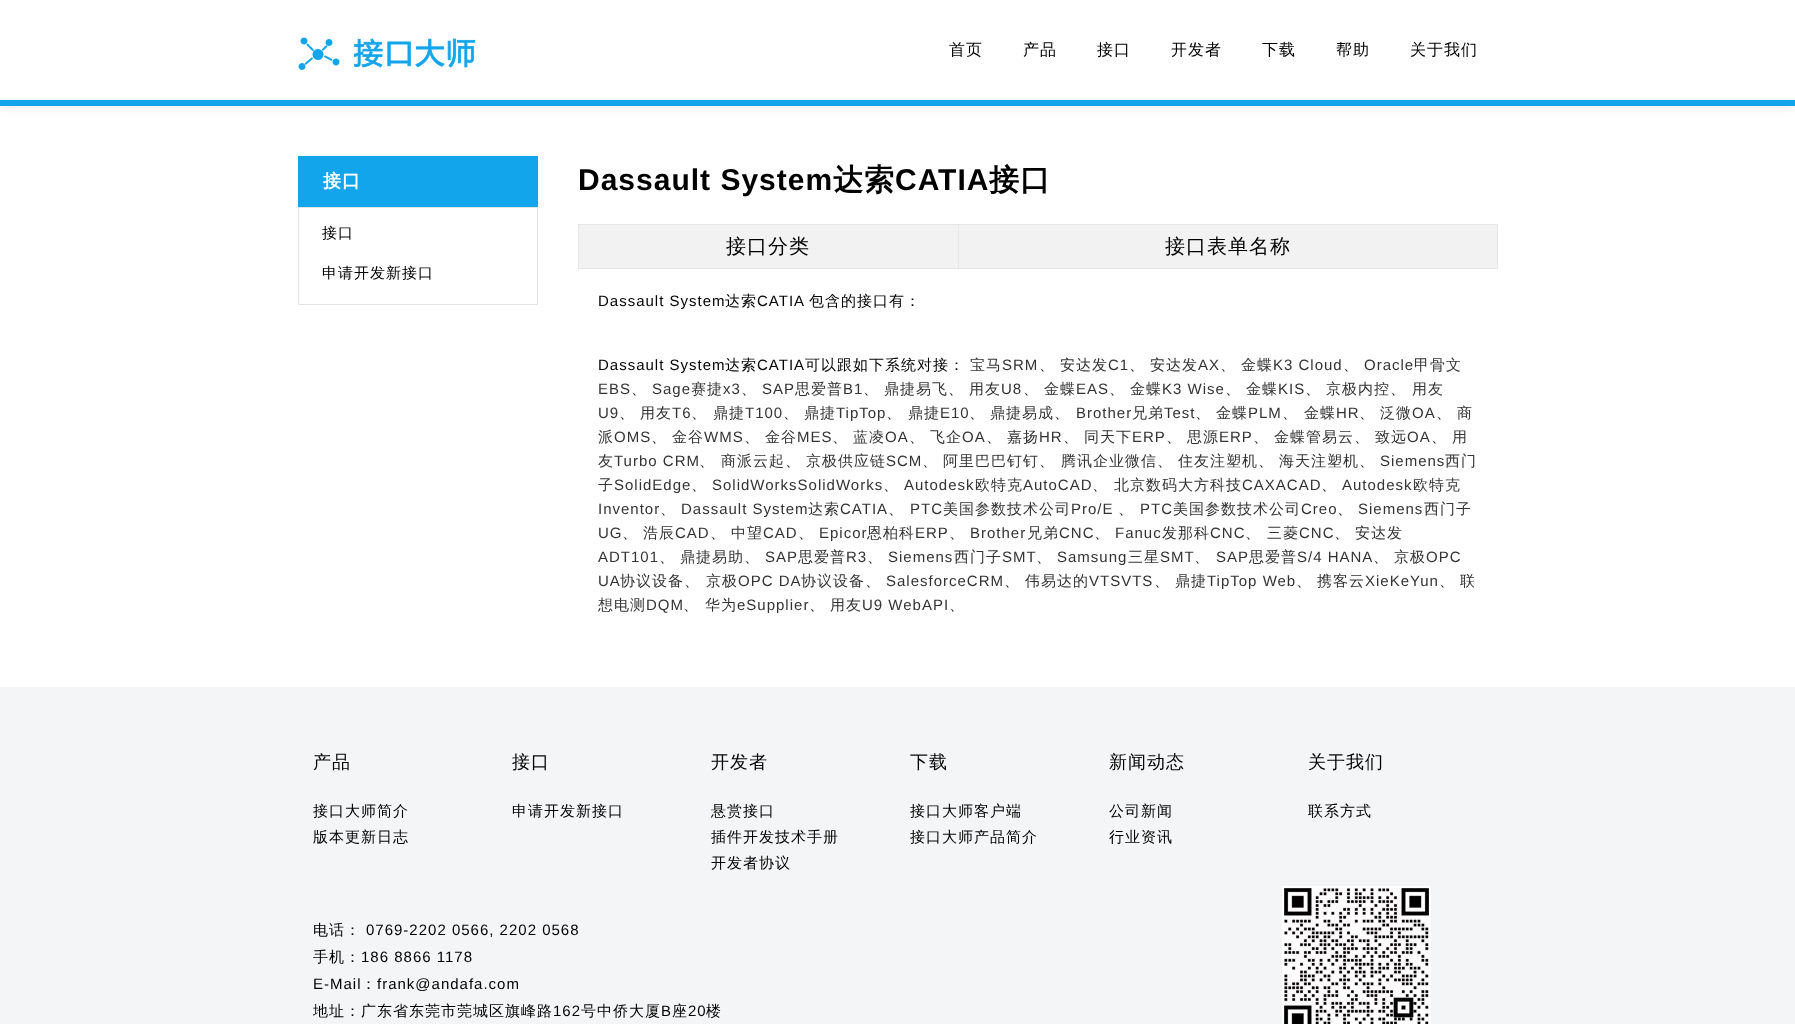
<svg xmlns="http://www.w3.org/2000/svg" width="1795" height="1024">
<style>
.a{font:500 16px WenQuanYi Zen Hei;letter-spacing:1px;fill:#000}
.b{font:bold 18px WenQuanYi Zen Hei;letter-spacing:1px;fill:#fff}
.c{font:500 15px WenQuanYi Zen Hei;letter-spacing:1px;fill:#000}
.d{font:bold 30px Liberation Sans;letter-spacing:1px;fill:#000}
.e{font:bold 30px WenQuanYi Zen Hei;letter-spacing:1px;fill:#000}
.f{font:500 20px WenQuanYi Zen Hei;letter-spacing:1px;fill:#000}
.g{font:15px Liberation Sans;letter-spacing:1px;fill:#000}
.h{font:500 15px WenQuanYi Zen Hei;letter-spacing:1px;fill:#333}
.i{font:15px Liberation Sans;letter-spacing:1px;fill:#333}
.j{font:500 18px WenQuanYi Zen Hei;letter-spacing:1px;fill:#000}
</style>
<defs>
<clipPath id="clip1"><path d="M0 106h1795v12H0z"/></clipPath>
</defs>
<rect width="100%" height="100%" fill="#fff"/>
<g clip-path="url(#clip1)">
<path fill="#ececec" filter="blur(5px)" d="M0 2h1795v106H0z"/>
</g>
<path fill="#13a5ec" d="M0 100h1795v6H0z"/>
<image href="1.png" x="298" y="37" width="178" height="33"/>
<path fill="#13a5ec" d="M298 156h240v51H298z"/>
<path fill="none" stroke="#e3e3e3" d="M298.5 207.5h239v97H298.5z"/>
<path fill="#f2f2f2" d="M579 225h379v43H579z"/>
<path fill="#e6e6e6" d="M958 224h540v1H958z"/>
<path fill="#e6e6e6" d="M1497 224h1v45H1497z"/>
<path fill="#e6e6e6" d="M958 268h540v1H958z"/>
<path fill="#e6e6e6" d="M958 224h1v45H958z"/>
<path fill="#e6e6e6" d="M578 224h381v1H578z"/>
<path fill="#e6e6e6" d="M578 268h381v1H578z"/>
<path fill="#e6e6e6" d="M578 224h1v45H578z"/>
<path fill="#f2f2f2" d="M959 225h538v43H959z"/>
<path fill="#f4f5f6" d="M0 687h1795v337H0z"/>
<path fill="none" stroke="#fff" stroke-width="2" d="M1283 887h147v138H1283z"/>
<image href="2.png" x="1284" y="888" width="145" height="136"/>
<text class="a" x="949" y="55">首页</text>
<text class="a" x="1023" y="55">产品</text>
<text class="a" x="1097" y="55">接口</text>
<text class="a" x="1171" y="55">开发者</text>
<text class="a" x="1262" y="55">下载</text>
<text class="a" x="1336" y="55">帮助</text>
<text class="a" x="1410" y="55">关于我们</text>
<text class="b" x="323" y="187">接口</text>
<text class="c" x="322" y="238">接口</text>
<text class="c" x="322" y="278">申请开发新接口</text>
<text class="d" x="578" y="190">Dassault System</text>
<text class="e" x="833" y="190">达索</text>
<text class="d" x="895" y="190">CATIA</text>
<text class="e" x="989" y="190">接口</text>
<text class="f" x="726" y="253">接口分类</text>
<text class="f" x="1165" y="253">接口表单名称</text>
<text class="g" x="598" y="306">Dassault System</text>
<text class="c" x="725" y="306">达索</text>
<text class="g" x="757" y="306">CATIA</text>
<text class="c" x="809" y="306">包含的接口有：</text>
<text class="g" x="598" y="370">Dassault System</text>
<text class="c" x="725" y="370">达索</text>
<text class="g" x="757" y="370">CATIA</text>
<text class="c" x="805" y="370">可以跟如下系统对接：</text>
<text class="h" x="970" y="370">宝马</text>
<text class="i" x="1002" y="370">SRM</text>
<text class="h" x="1039" y="370">、</text>
<text class="h" x="1060" y="370">安达发</text>
<text class="i" x="1108" y="370">C1</text>
<text class="h" x="1129" y="370">、</text>
<text class="h" x="1150" y="370">安达发</text>
<text class="i" x="1198" y="370">AX</text>
<text class="h" x="1220" y="370">、</text>
<text class="h" x="1241" y="370">金蝶</text>
<text class="i" x="1273" y="370">K3 Cloud</text>
<text class="h" x="1343" y="370">、</text>
<text class="i" x="1364" y="370">Oracle</text>
<text class="h" x="1414" y="370">甲骨文</text>
<text class="i" x="598" y="394">EBS</text>
<text class="h" x="631" y="394">、</text>
<text class="i" x="652" y="394">Sage</text>
<text class="h" x="691" y="394">赛捷</text>
<text class="i" x="723" y="394">x3</text>
<text class="h" x="741" y="394">、</text>
<text class="i" x="762" y="394">SAP</text>
<text class="h" x="795" y="394">思爱普</text>
<text class="i" x="843" y="394">B1</text>
<text class="h" x="863" y="394">、</text>
<text class="h" x="884" y="394">鼎捷易飞、</text>
<text class="h" x="969" y="394">用友</text>
<text class="i" x="1001" y="394">U8</text>
<text class="h" x="1023" y="394">、</text>
<text class="h" x="1044" y="394">金蝶</text>
<text class="i" x="1076" y="394">EAS</text>
<text class="h" x="1109" y="394">、</text>
<text class="h" x="1130" y="394">金蝶</text>
<text class="i" x="1162" y="394">K3 Wise</text>
<text class="h" x="1225" y="394">、</text>
<text class="h" x="1246" y="394">金蝶</text>
<text class="i" x="1278" y="394">KIS</text>
<text class="h" x="1305" y="394">、</text>
<text class="h" x="1326" y="394">京极内控、</text>
<text class="h" x="1412" y="394">用友</text>
<text class="i" x="598" y="418">U9</text>
<text class="h" x="619" y="418">、</text>
<text class="h" x="640" y="418">用友</text>
<text class="i" x="672" y="418">T6</text>
<text class="h" x="691" y="418">、</text>
<text class="h" x="713" y="418">鼎捷</text>
<text class="i" x="745" y="418">T100</text>
<text class="h" x="783" y="418">、</text>
<text class="h" x="804" y="418">鼎捷</text>
<text class="i" x="836" y="418">TipTop</text>
<text class="h" x="886" y="418">、</text>
<text class="h" x="908" y="418">鼎捷</text>
<text class="i" x="940" y="418">E10</text>
<text class="h" x="969" y="418">、</text>
<text class="h" x="990" y="418">鼎捷易成、</text>
<text class="i" x="1076" y="418">Brother</text>
<text class="h" x="1132" y="418">兄弟</text>
<text class="i" x="1164" y="418">Test</text>
<text class="h" x="1195" y="418">、</text>
<text class="h" x="1216" y="418">金蝶</text>
<text class="i" x="1248" y="418">PLM</text>
<text class="h" x="1282" y="418">、</text>
<text class="h" x="1304" y="418">金蝶</text>
<text class="i" x="1336" y="418">HR</text>
<text class="h" x="1359" y="418">、</text>
<text class="h" x="1380" y="418">泛微</text>
<text class="i" x="1412" y="418">OA</text>
<text class="h" x="1436" y="418">、</text>
<text class="h" x="1457" y="418">商</text>
<text class="h" x="598" y="442">派</text>
<text class="i" x="614" y="442">OMS</text>
<text class="h" x="651" y="442">、</text>
<text class="h" x="672" y="442">金谷</text>
<text class="i" x="704" y="442">WMS</text>
<text class="h" x="744" y="442">、</text>
<text class="h" x="765" y="442">金谷</text>
<text class="i" x="797" y="442">MES</text>
<text class="h" x="832" y="442">、</text>
<text class="h" x="853" y="442">蓝凌</text>
<text class="i" x="885" y="442">OA</text>
<text class="h" x="909" y="442">、</text>
<text class="h" x="930" y="442">飞企</text>
<text class="i" x="962" y="442">OA</text>
<text class="h" x="986" y="442">、</text>
<text class="h" x="1007" y="442">嘉扬</text>
<text class="i" x="1039" y="442">HR</text>
<text class="h" x="1063" y="442">、</text>
<text class="h" x="1084" y="442">同天下</text>
<text class="i" x="1132" y="442">ERP</text>
<text class="h" x="1166" y="442">、</text>
<text class="h" x="1187" y="442">思源</text>
<text class="i" x="1219" y="442">ERP</text>
<text class="h" x="1253" y="442">、</text>
<text class="h" x="1274" y="442">金蝶管易云、</text>
<text class="h" x="1375" y="442">致远</text>
<text class="i" x="1407" y="442">OA</text>
<text class="h" x="1431" y="442">、</text>
<text class="h" x="1452" y="442">用</text>
<text class="h" x="598" y="466">友</text>
<text class="i" x="614" y="466">Turbo CRM</text>
<text class="h" x="699" y="466">、</text>
<text class="h" x="721" y="466">商派云起、</text>
<text class="h" x="806" y="466">京极供应链</text>
<text class="i" x="886" y="466">SCM</text>
<text class="h" x="922" y="466">、</text>
<text class="h" x="943" y="466">阿里巴巴钉钉、</text>
<text class="h" x="1061" y="466">腾讯企业微信、</text>
<text class="h" x="1178" y="466">住友注塑机、</text>
<text class="h" x="1279" y="466">海天注塑机、</text>
<text class="i" x="1380" y="466">Siemens</text>
<text class="h" x="1445" y="466">西门</text>
<text class="h" x="598" y="490">子</text>
<text class="i" x="614" y="490">SolidEdge</text>
<text class="h" x="691" y="490">、</text>
<text class="i" x="712" y="490">SolidWorksSolidWorks</text>
<text class="h" x="883" y="490">、</text>
<text class="i" x="904" y="490">Autodesk</text>
<text class="h" x="975" y="490">欧特克</text>
<text class="i" x="1023" y="490">AutoCAD</text>
<text class="h" x="1092" y="490">、</text>
<text class="h" x="1114" y="490">北京数码大方科技</text>
<text class="i" x="1242" y="490">CAXACAD</text>
<text class="h" x="1321" y="490">、</text>
<text class="i" x="1342" y="490">Autodesk</text>
<text class="h" x="1413" y="490">欧特克</text>
<text class="i" x="598" y="514">Inventor</text>
<text class="h" x="660" y="514">、</text>
<text class="i" x="681" y="514">Dassault System</text>
<text class="h" x="808" y="514">达索</text>
<text class="i" x="840" y="514">CATIA</text>
<text class="h" x="888" y="514">、</text>
<text class="i" x="910" y="514">PTC</text>
<text class="h" x="943" y="514">美国参数技术公司</text>
<text class="i" x="1071" y="514">Pro/E</text>
<text class="h" x="1118" y="514">、</text>
<text class="i" x="1140" y="514">PTC</text>
<text class="h" x="1173" y="514">美国参数技术公司</text>
<text class="i" x="1301" y="514">Creo</text>
<text class="h" x="1337" y="514">、</text>
<text class="i" x="1358" y="514">Siemens</text>
<text class="h" x="1424" y="514">西门子</text>
<text class="i" x="598" y="538">UG</text>
<text class="h" x="622" y="538">、</text>
<text class="h" x="643" y="538">浩辰</text>
<text class="i" x="675" y="538">CAD</text>
<text class="h" x="710" y="538">、</text>
<text class="h" x="731" y="538">中望</text>
<text class="i" x="763" y="538">CAD</text>
<text class="h" x="798" y="538">、</text>
<text class="i" x="819" y="538">Epicor</text>
<text class="h" x="867" y="538">恩柏科</text>
<text class="i" x="915" y="538">ERP</text>
<text class="h" x="949" y="538">、</text>
<text class="i" x="970" y="538">Brother</text>
<text class="h" x="1027" y="538">兄弟</text>
<text class="i" x="1059" y="538">CNC</text>
<text class="h" x="1094" y="538">、</text>
<text class="i" x="1115" y="538">Fanuc</text>
<text class="h" x="1162" y="538">发那科</text>
<text class="i" x="1210" y="538">CNC</text>
<text class="h" x="1245" y="538">、</text>
<text class="h" x="1267" y="538">三菱</text>
<text class="i" x="1299" y="538">CNC</text>
<text class="h" x="1334" y="538">、</text>
<text class="h" x="1355" y="538">安达发</text>
<text class="i" x="598" y="562">ADT101</text>
<text class="h" x="659" y="562">、</text>
<text class="h" x="680" y="562">鼎捷易助、</text>
<text class="i" x="765" y="562">SAP</text>
<text class="h" x="798" y="562">思爱普</text>
<text class="i" x="846" y="562">R3</text>
<text class="h" x="867" y="562">、</text>
<text class="i" x="888" y="562">Siemens</text>
<text class="h" x="954" y="562">西门子</text>
<text class="i" x="1002" y="562">SMT</text>
<text class="h" x="1036" y="562">、</text>
<text class="i" x="1057" y="562">Samsung</text>
<text class="h" x="1128" y="562">三星</text>
<text class="i" x="1160" y="562">SMT</text>
<text class="h" x="1194" y="562">、</text>
<text class="i" x="1216" y="562">SAP</text>
<text class="h" x="1249" y="562">思爱普</text>
<text class="i" x="1297" y="562">S/4 HANA</text>
<text class="h" x="1373" y="562">、</text>
<text class="h" x="1394" y="562">京极</text>
<text class="i" x="1426" y="562">OPC</text>
<text class="i" x="598" y="586">UA</text>
<text class="h" x="620" y="586">协议设备、</text>
<text class="h" x="706" y="586">京极</text>
<text class="i" x="738" y="586">OPC DA</text>
<text class="h" x="801" y="586">协议设备、</text>
<text class="i" x="886" y="586">SalesforceCRM</text>
<text class="h" x="1004" y="586">、</text>
<text class="h" x="1025" y="586">伟易达的</text>
<text class="i" x="1089" y="586">VTSVTS</text>
<text class="h" x="1154" y="586">、</text>
<text class="h" x="1175" y="586">鼎捷</text>
<text class="i" x="1207" y="586">TipTop Web</text>
<text class="h" x="1296" y="586">、</text>
<text class="h" x="1317" y="586">携客云</text>
<text class="i" x="1365" y="586">XieKeYun</text>
<text class="h" x="1439" y="586">、</text>
<text class="h" x="1460" y="586">联</text>
<text class="h" x="598" y="610">想电测</text>
<text class="i" x="646" y="610">DQM</text>
<text class="h" x="683" y="610">、</text>
<text class="h" x="705" y="610">华为</text>
<text class="i" x="737" y="610">eSupplier</text>
<text class="h" x="809" y="610">、</text>
<text class="h" x="830" y="610">用友</text>
<text class="i" x="862" y="610">U9 WebAPI</text>
<text class="h" x="949" y="610">、</text>
<text class="j" x="313" y="768">产品</text>
<text class="c" x="313" y="816">接口大师简介</text>
<text class="c" x="313" y="842">版本更新日志</text>
<text class="j" x="512" y="768">接口</text>
<text class="c" x="512" y="816">申请开发新接口</text>
<text class="j" x="711" y="768">开发者</text>
<text class="c" x="711" y="816">悬赏接口</text>
<text class="c" x="711" y="842">插件开发技术手册</text>
<text class="c" x="711" y="868">开发者协议</text>
<text class="j" x="910" y="768">下载</text>
<text class="c" x="910" y="816">接口大师客户端</text>
<text class="c" x="910" y="842">接口大师产品简介</text>
<text class="j" x="1109" y="768">新闻动态</text>
<text class="c" x="1109" y="816">公司新闻</text>
<text class="c" x="1109" y="842">行业资讯</text>
<text class="j" x="1308" y="768">关于我们</text>
<text class="c" x="1308" y="816">联系方式</text>
<text class="c" x="313" y="935">电话：</text>
<text class="g" x="366" y="935">0769-2202 0566, 2202 0568</text>
<text class="c" x="313" y="962">手机：</text>
<text class="g" x="361" y="962">186 8866 1178</text>
<text class="g" x="313" y="989">E-Mail</text>
<text class="c" x="361" y="989">：</text>
<text class="g" x="377" y="989">frank@andafa.com</text>
<text class="c" x="313" y="1016">地址：广东省东莞市莞城区旗峰路</text>
<text class="g" x="553" y="1016">162</text>
<text class="c" x="581" y="1016">号中侨大厦</text>
<text class="g" x="661" y="1016">B</text>
<text class="c" x="672" y="1016">座</text>
<text class="g" x="688" y="1016">20</text>
<text class="c" x="706" y="1016">楼</text>
</svg>
